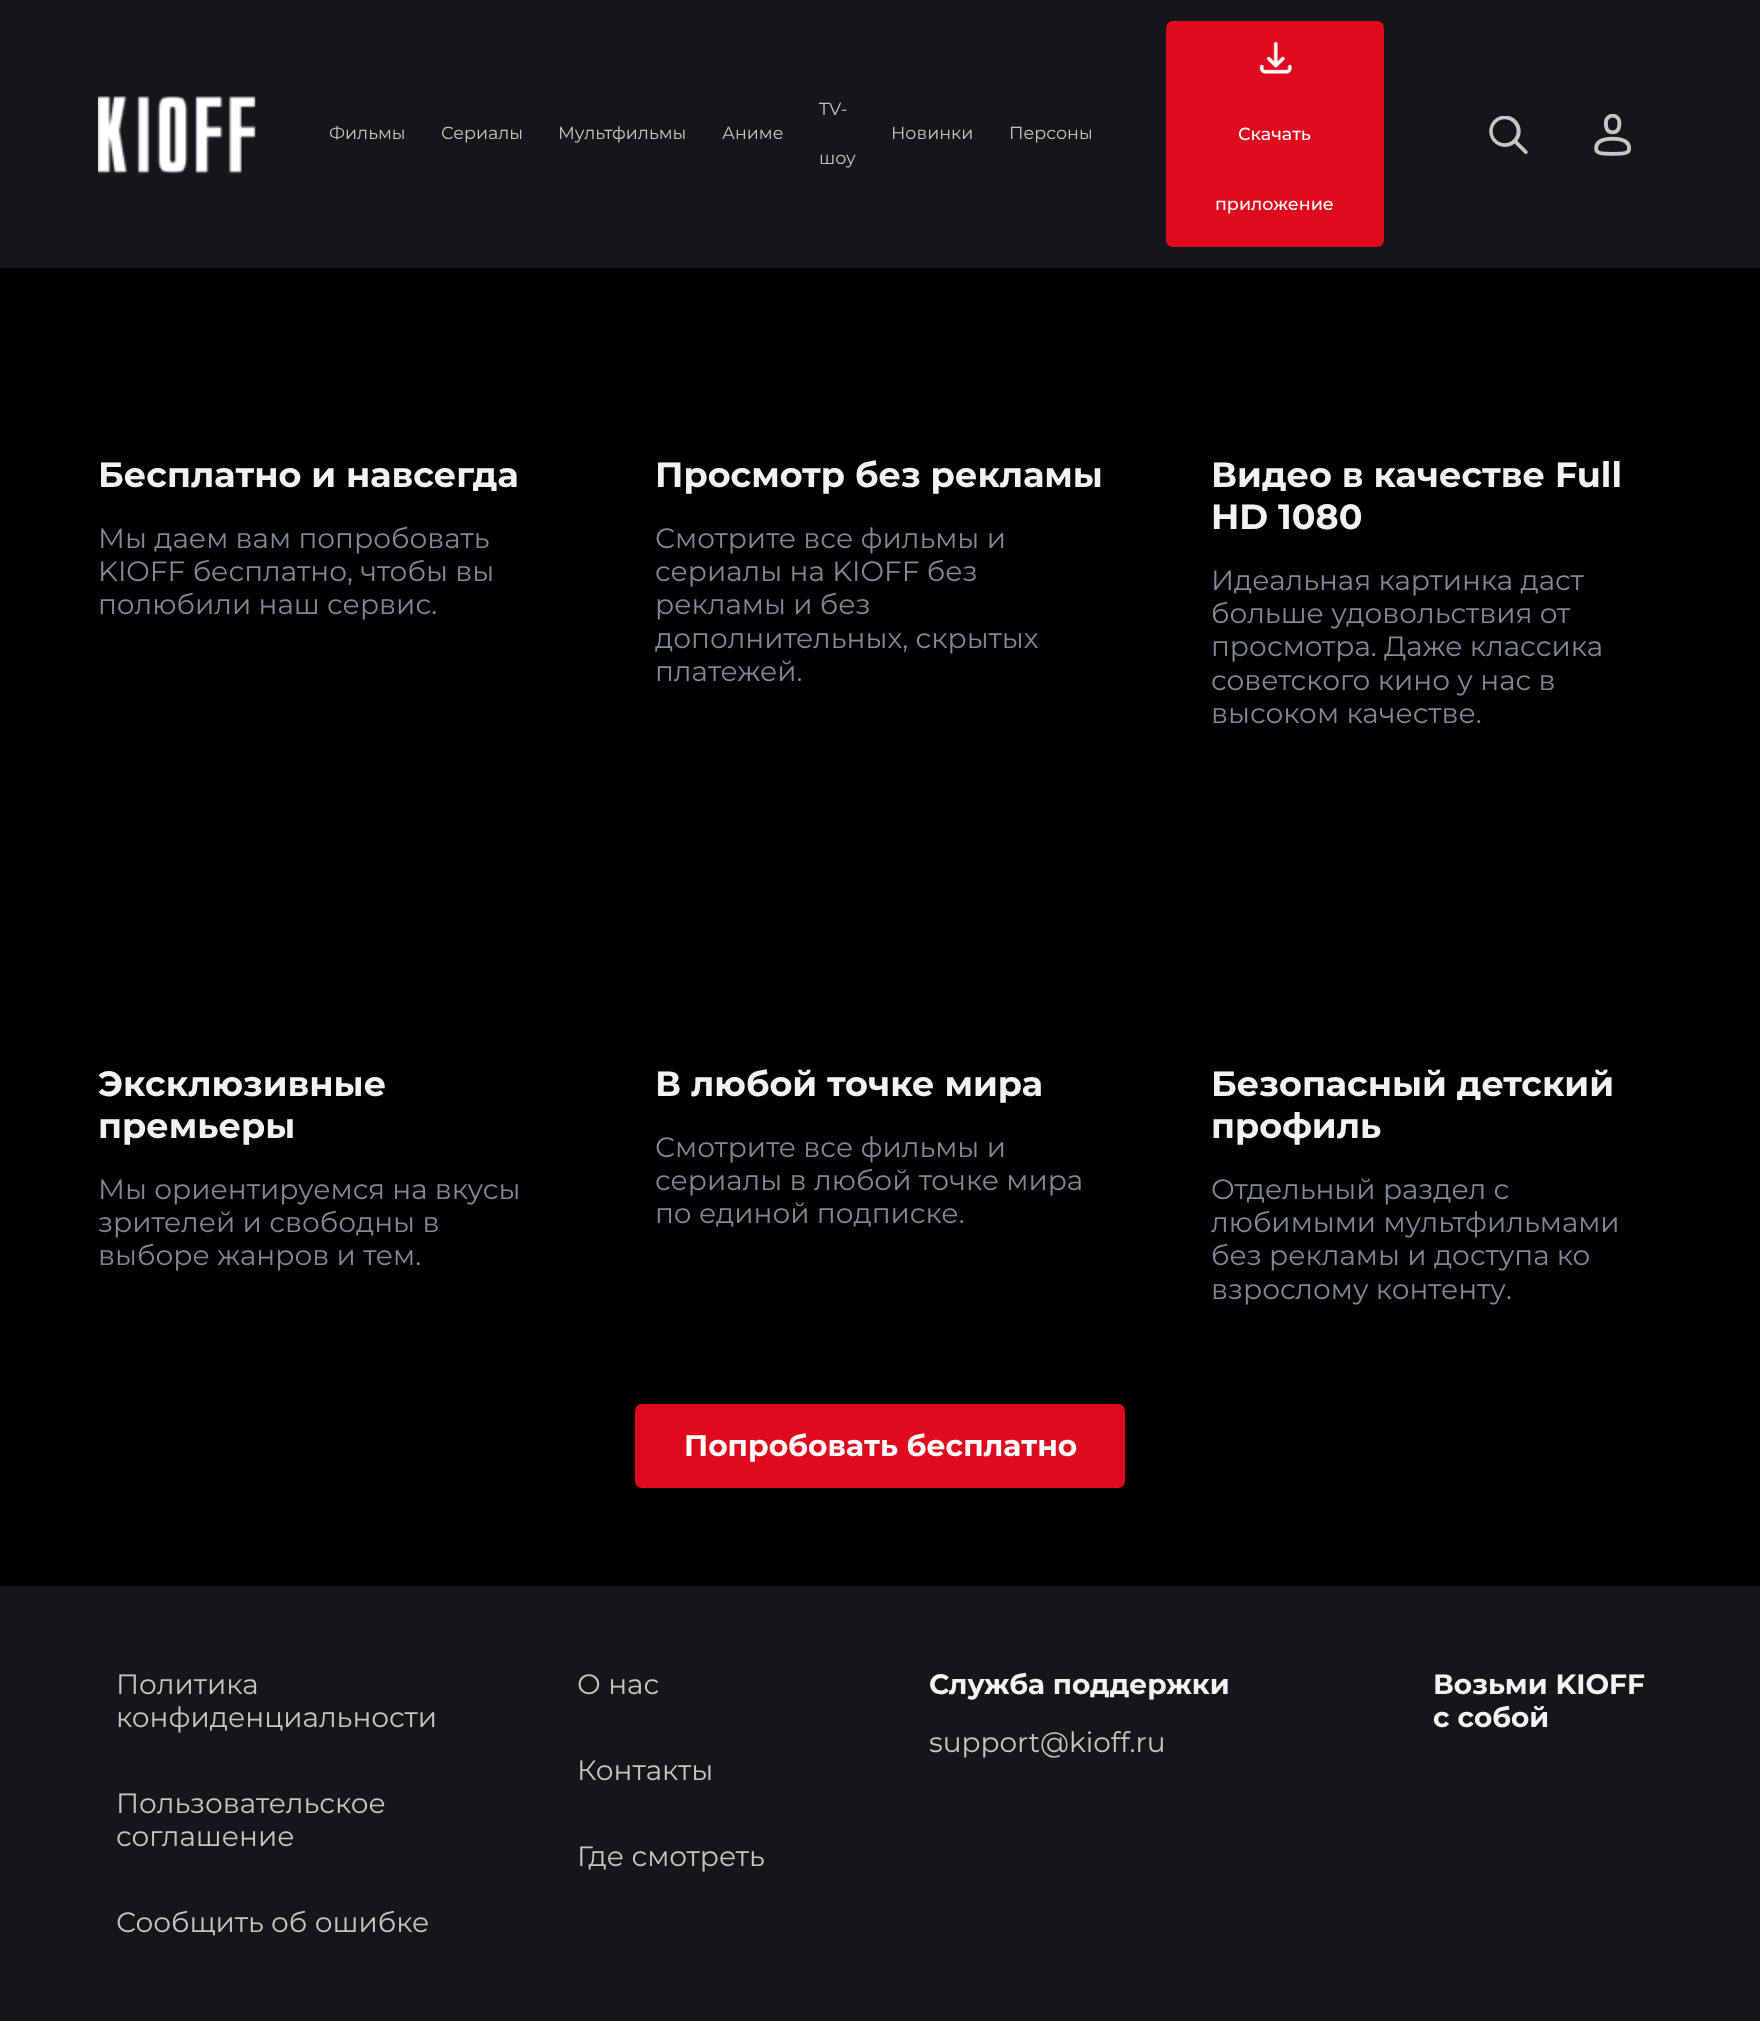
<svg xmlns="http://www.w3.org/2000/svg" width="1760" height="2021">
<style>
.a{font:17.5px Montserrat;fill:#c4c5c6}
.b{font:500 17.5px Montserrat;fill:#fff}
.c{font:bold 35px Montserrat;fill:#f2f2f2}
.d{font:28px Montserrat;fill:#808893}
.e{font:bold 29.75px Montserrat;fill:#fff}
.f{font:28px Montserrat;fill:#c4c5c6}
.g{font:bold 28px Montserrat;fill:#f2f2f2}
</style>
<rect width="100%" height="100%" fill="#14161a"/>
<image href="1.png" x="98" y="96" width="158" height="78"/>
<rect fill="#e00a1e" x="1166" y="21" width="218" height="226" rx="7"/>
<image href="2.png" x="1259" y="42" width="33" height="32"/>
<image href="3.png" x="1489" y="116" width="39" height="38"/>
<image href="4.png" x="1594" y="114" width="37" height="42"/>
<path fill="#000" d="M0 268h1760v1318H0z"/>
<rect fill="#e00a1e" x="635" y="1404" width="490" height="84" rx="7"/>
<text class="a" x="329" y="139">Фильмы</text>
<text class="a" x="441" y="139">Сериалы</text>
<text class="a" x="558" y="139">Мультфильмы</text>
<text class="a" x="722" y="139">Аниме</text>
<text class="a" x="819" y="115">TV-</text>
<text class="a" x="819" y="164">шоу</text>
<text class="a" x="891" y="139">Новинки</text>
<text class="a" x="1009" y="139">Персоны</text>
<text class="b" x="1238" y="140">Скачать</text>
<text class="b" x="1215" y="210">приложение</text>
<text class="c" x="98" y="487">Бесплатно и навсегда</text>
<text class="d" x="98" y="548">Мы даем вам попробовать</text>
<text class="d" x="98" y="581">KIOFF бесплатно, чтобы вы</text>
<text class="d" x="98" y="614">полюбили наш сервис.</text>
<text class="c" x="655" y="487">Просмотр без рекламы</text>
<text class="d" x="655" y="548">Смотрите все фильмы и</text>
<text class="d" x="655" y="581">сериалы на KIOFF без</text>
<text class="d" x="655" y="614">рекламы и без</text>
<text class="d" x="655" y="648">дополнительных, скрытых</text>
<text class="d" x="655" y="681">платежей.</text>
<text class="c" x="1211" y="487">Видео в качестве Full</text>
<text class="c" x="1211" y="529">HD 1080</text>
<text class="d" x="1211" y="590">Идеальная картинка даст</text>
<text class="d" x="1211" y="623">больше удовольствия от</text>
<text class="d" x="1211" y="656">просмотра. Даже классика</text>
<text class="d" x="1211" y="690">советского кино у нас в</text>
<text class="d" x="1211" y="723">высоком качестве.</text>
<text class="c" x="98" y="1096">Эксклюзивные</text>
<text class="c" x="98" y="1138">премьеры</text>
<text class="d" x="98" y="1199">Мы ориентируемся на вкусы</text>
<text class="d" x="98" y="1232">зрителей и свободны в</text>
<text class="d" x="98" y="1265">выборе жанров и тем.</text>
<text class="c" x="655" y="1096">В любой точке мира</text>
<text class="d" x="655" y="1157">Смотрите все фильмы и</text>
<text class="d" x="655" y="1190">сериалы в любой точке мира</text>
<text class="d" x="655" y="1223">по единой подписке.</text>
<text class="c" x="1211" y="1096">Безопасный детский</text>
<text class="c" x="1211" y="1138">профиль</text>
<text class="d" x="1211" y="1199">Отдельный раздел с</text>
<text class="d" x="1211" y="1232">любимыми мультфильмами</text>
<text class="d" x="1211" y="1265">без рекламы и доступа ко</text>
<text class="d" x="1211" y="1299">взрослому контенту.</text>
<text class="e" x="684" y="1456">Попробовать бесплатно</text>
<text class="f" x="116" y="1694">Политика</text>
<text class="f" x="116" y="1727">конфиденциальности</text>
<text class="f" x="116" y="1813">Пользовательское</text>
<text class="f" x="116" y="1846">соглашение</text>
<text class="f" x="116" y="1932">Сообщить об ошибке</text>
<text class="f" x="577" y="1694">О нас</text>
<text class="f" x="577" y="1780">Контакты</text>
<text class="f" x="577" y="1866">Где смотреть</text>
<text class="g" x="929" y="1694">Служба поддержки</text>
<text class="f" x="929" y="1752">support@kioff.ru</text>
<text class="g" x="1433" y="1694">Возьми KIOFF</text>
<text class="g" x="1433" y="1727">с собой</text>
</svg>
